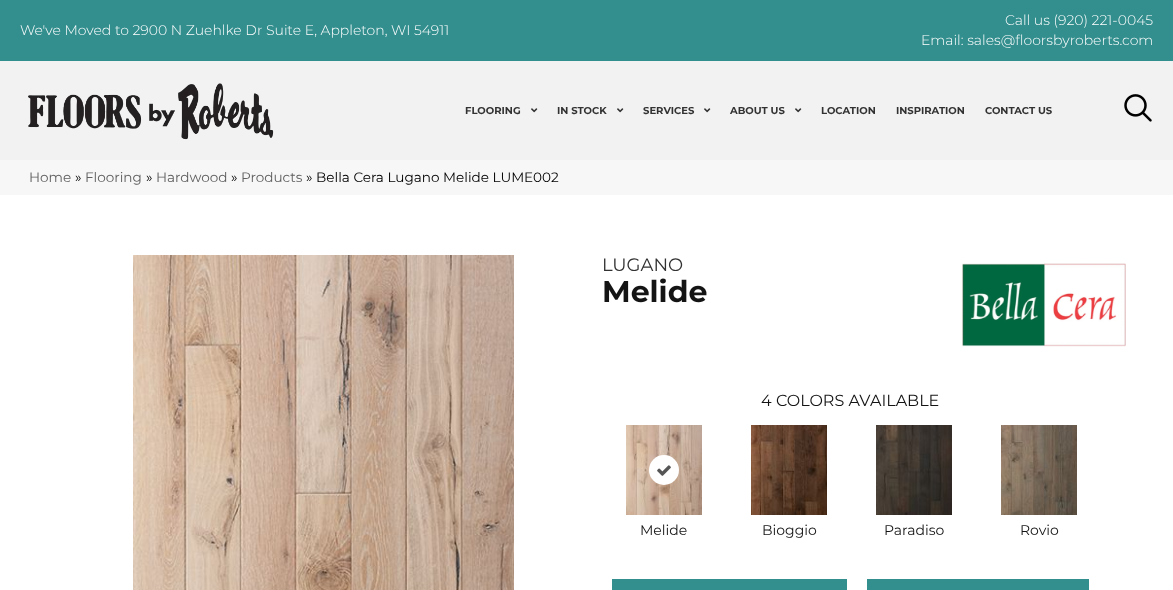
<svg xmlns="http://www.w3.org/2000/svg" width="1173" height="590">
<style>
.a{font:300 14px Montserrat;fill:#fff}
.b{font:bold 10px Montserrat;fill:#323232}
.c{font:13.6px Montserrat;fill:#606060}
.d{font:13.6px Montserrat;fill:#000}
.e{font:18px Montserrat;fill:#323232}
.f{font:bold 30px Montserrat;fill:#141414}
.g{font:16px Montserrat;fill:#141414}
.h{font:14px Montserrat;fill:#141414}
</style>
<rect width="100%" height="100%" fill="#f2f2f2"/>
<path fill="#338e8e" d="M0 0h1173v61H0z"/>
<image href="1.png" x="28" y="83" width="246" height="57"/>
<image href="2.png" x="531" y="108" width="7" height="5"/>
<image href="2.png" x="617" y="108" width="7" height="5"/>
<image href="2.png" x="704" y="108" width="7" height="5"/>
<image href="2.png" x="795" y="108" width="7" height="5"/>
<image href="3.png" x="1124" y="94" width="28" height="28"/>
<path fill="#fff" d="M0 195h1173v395H0z"/>
<path fill="#f7f7f7" d="M0 160h1173v35H0z"/>
<image href="4.png" x="133" y="255" width="381" height="335"/>
<image href="5.png" x="961" y="263" width="165" height="84"/>
<image href="6.png" x="626" y="425" width="76" height="90"/>
<circle fill="#fff" cx="664" cy="470" r="15"/>
<image href="7.png" x="657" y="465" width="14" height="11"/>
<image href="8.png" x="751" y="425" width="76" height="90"/>
<image href="9.png" x="876" y="425" width="76" height="90"/>
<image href="10.png" x="1001" y="425" width="76" height="90"/>
<path fill="#338e8e" d="M612 579h235v11H612z"/>
<path fill="#338e8e" d="M867 579h222v11H867z"/>
<text class="a" x="20" y="35">We've Moved to 2900 N Zuehlke Dr Suite E, Appleton, WI 54911</text>
<text class="a" x="1005" y="25">Call us (920) 221-0045</text>
<text class="a" x="921" y="45">Email: sales@floorsbyroberts.com</text>
<text class="b" x="465" y="114">FLOORING</text>
<text class="b" x="557" y="114">IN STOCK</text>
<text class="b" x="643" y="114">SERVICES</text>
<text class="b" x="730" y="114">ABOUT US</text>
<text class="b" x="821" y="114">LOCATION</text>
<text class="b" x="896" y="114">INSPIRATION</text>
<text class="b" x="985" y="114">CONTACT US</text>
<text class="c" x="29" y="182">Home</text>
<text class="d" x="75" y="182">»</text>
<text class="c" x="85" y="182">Flooring</text>
<text class="d" x="146" y="182">»</text>
<text class="c" x="156" y="182">Hardwood</text>
<text class="d" x="231" y="182">»</text>
<text class="c" x="241" y="182">Products</text>
<text class="d" x="306" y="182">» Bella Cera Lugano Melide LUME002</text>
<text class="e" x="602" y="271">LUGANO</text>
<text class="f" x="602" y="302">Melide</text>
<text class="g" x="761" y="406">4</text>
<text class="g" x="776" y="406">COLORS AVAILABLE</text>
<text class="h" x="640" y="535">Melide</text>
<text class="h" x="762" y="535">Bioggio</text>
<text class="h" x="884" y="535">Paradiso</text>
<text class="h" x="1020" y="535">Rovio</text>
</svg>
